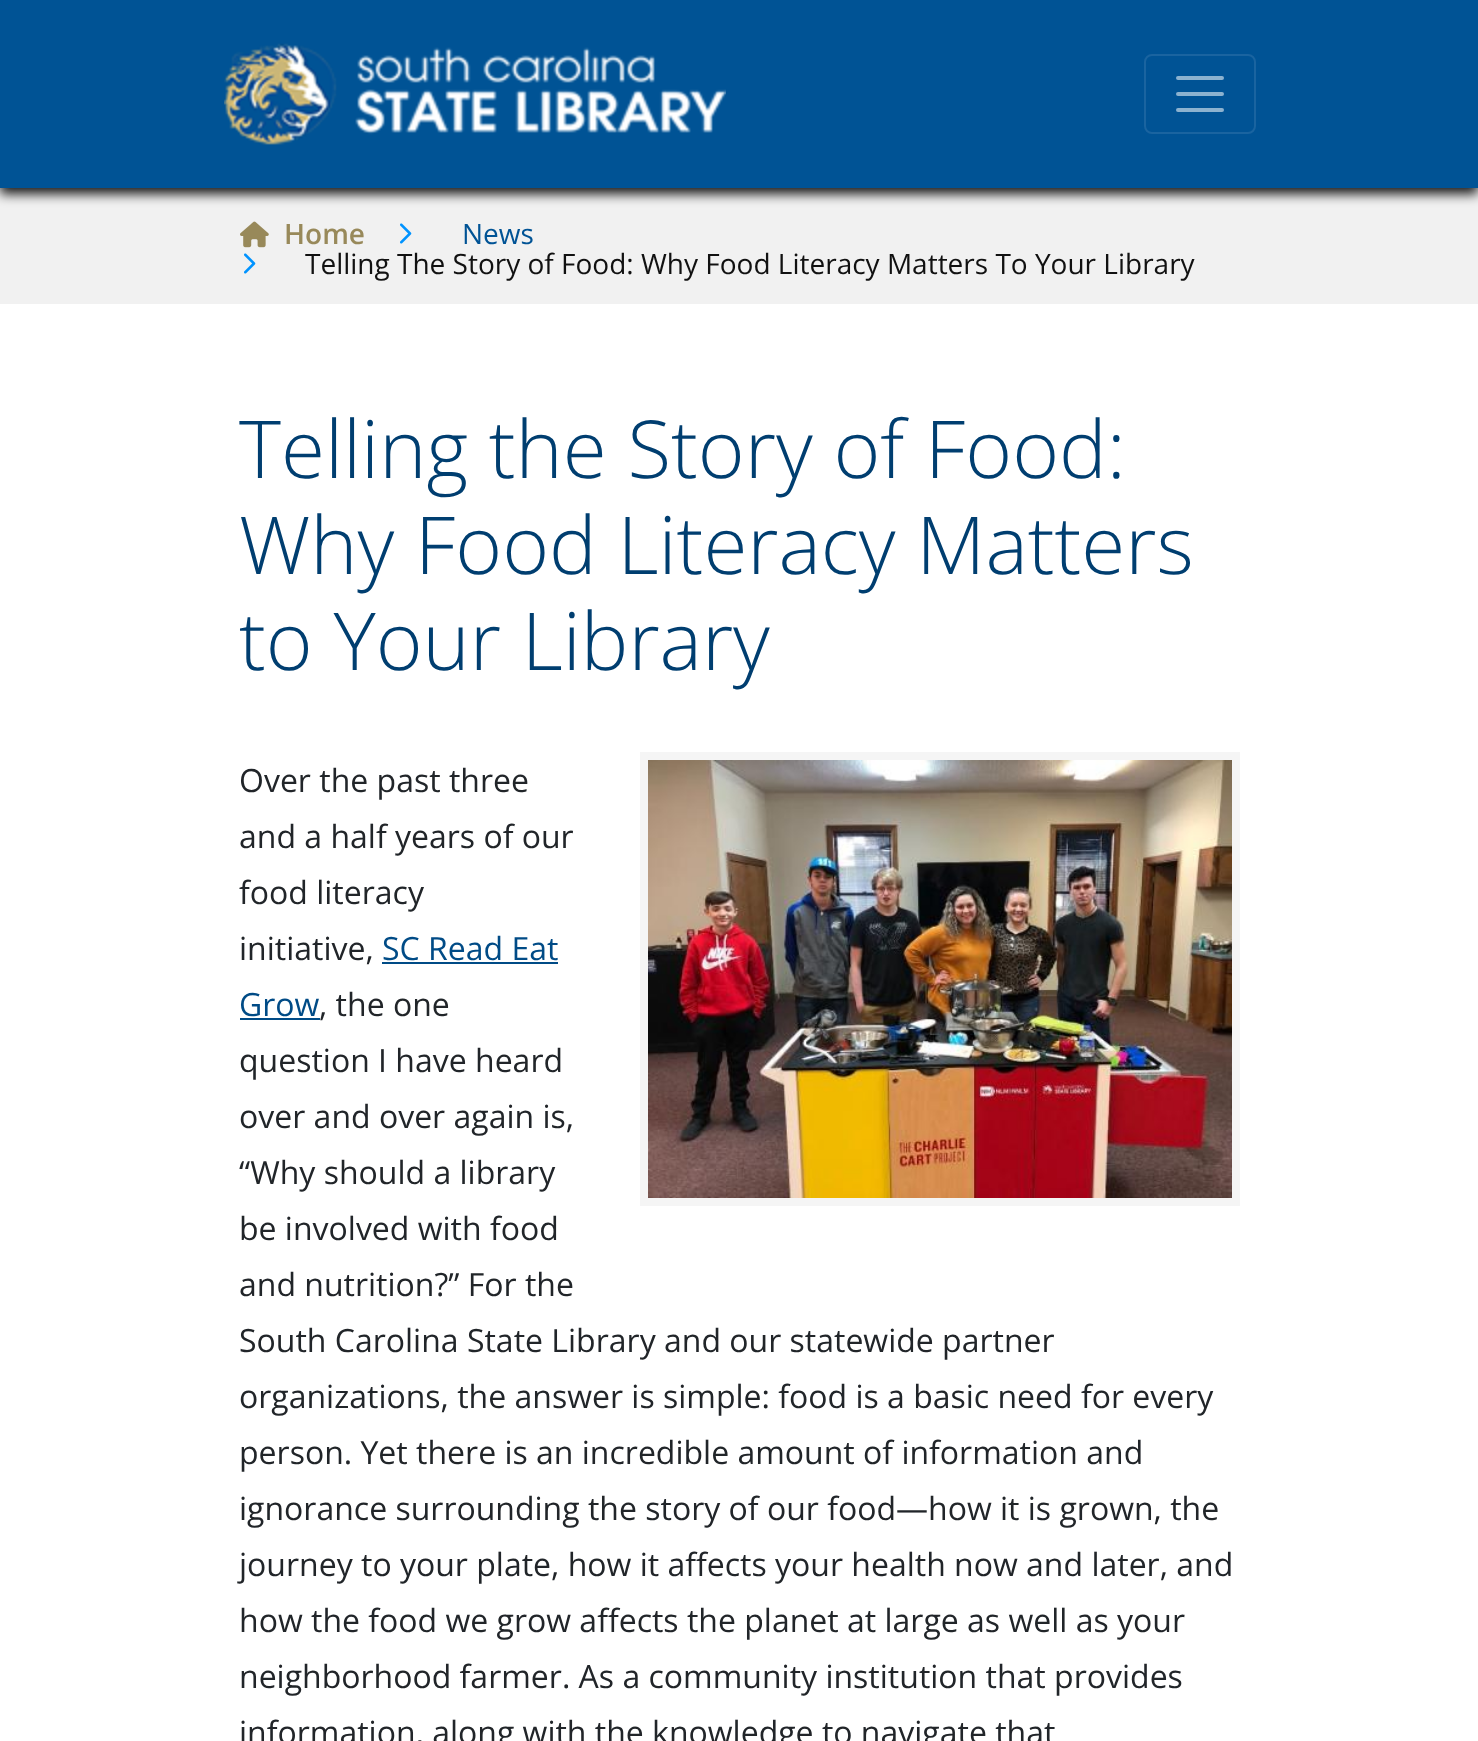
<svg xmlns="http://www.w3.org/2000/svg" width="1478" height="1741">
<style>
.a{font:600 28px Open Sans;fill:#98895a}
.b{font:28px Open Sans;fill:#005395}
.c{font:28px Open Sans;fill:#111}
.d{font:300 80px Open Sans;fill:#003e70}
.e{font:32px Open Sans;fill:#212529}
.f{font:32px Open Sans;fill:#004b86}
</style>
<rect width="100%" height="100%" fill="#fff"/>
<path fill="#f1f1f1" d="M0 188h1478v116H0z"/>
<path fill="#000000e6" filter="blur(6px)" d="M0 6h1478v188H0z"/>
<path fill="#005395" d="M0 0h1478v188H0z"/>
<image href="1.png" x="224" y="43" width="502" height="102"/>
<rect fill="none" stroke="#1a64a0" stroke-width="2" x="1145" y="55" width="110" height="78" rx="7"/>
<path fill="none" stroke="#8cb2cf" stroke-width="4" stroke-linecap="round" d="M1178 78h44m-44 16h44m-44 16h44"/>
<image href="2.png" x="240" y="221" width="29" height="27"/>
<image href="3.png" x="400" y="223" width="12" height="21"/>
<image href="3.png" x="244" y="253" width="12" height="21"/>
<path fill="none" stroke="#f5f5f5" stroke-width="8" d="M644 756h592v446H644z"/>
<image href="4.png" x="648" y="760" width="584" height="438"/>
<path fill="#004b86" d="M382 962h176v2H382z"/>
<path fill="#004b86" d="M240 1018h80v2H240z"/>
<text class="a" x="284" y="244">Home</text>
<text class="b" x="462" y="244">News</text>
<text class="c" x="305" y="274">Telling The Story of Food: Why Food Literacy Matters To Your Library</text>
<text class="d" x="239" y="478">Telling the Story of Food:</text>
<text class="d" x="239" y="574">Why Food Literacy Matters</text>
<text class="d" x="239" y="670">to Your Library</text>
<text class="e" x="239" y="792">Over the past three</text>
<text class="e" x="239" y="848">and a half years of our</text>
<text class="e" x="239" y="904">food literacy</text>
<text class="e" x="239" y="960">initiative,</text>
<text class="f" x="382" y="960">SC Read Eat</text>
<text class="f" x="239" y="1016">Grow</text>
<text class="e" x="319" y="1016">, the one</text>
<text class="e" x="239" y="1072">question I have heard</text>
<text class="e" x="239" y="1128">over and over again is,</text>
<text class="e" x="239" y="1184">“Why should a library</text>
<text class="e" x="239" y="1240">be involved with food</text>
<text class="e" x="239" y="1296">and nutrition?” For the</text>
<text class="e" x="239" y="1352">South Carolina State Library and our statewide partner</text>
<text class="e" x="239" y="1408">organizations, the answer is simple: food is a basic need for every</text>
<text class="e" x="239" y="1464">person. Yet there is an incredible amount of information and</text>
<text class="e" x="239" y="1520">ignorance surrounding the story of our food—how it is grown, the</text>
<text class="e" x="239" y="1576">journey to your plate, how it affects your health now and later, and</text>
<text class="e" x="239" y="1632">how the food we grow affects the planet at large as well as your</text>
<text class="e" x="239" y="1688">neighborhood farmer. As a community institution that provides</text>
<text class="e" x="239" y="1744">information, along with the knowledge to navigate that</text>
</svg>
